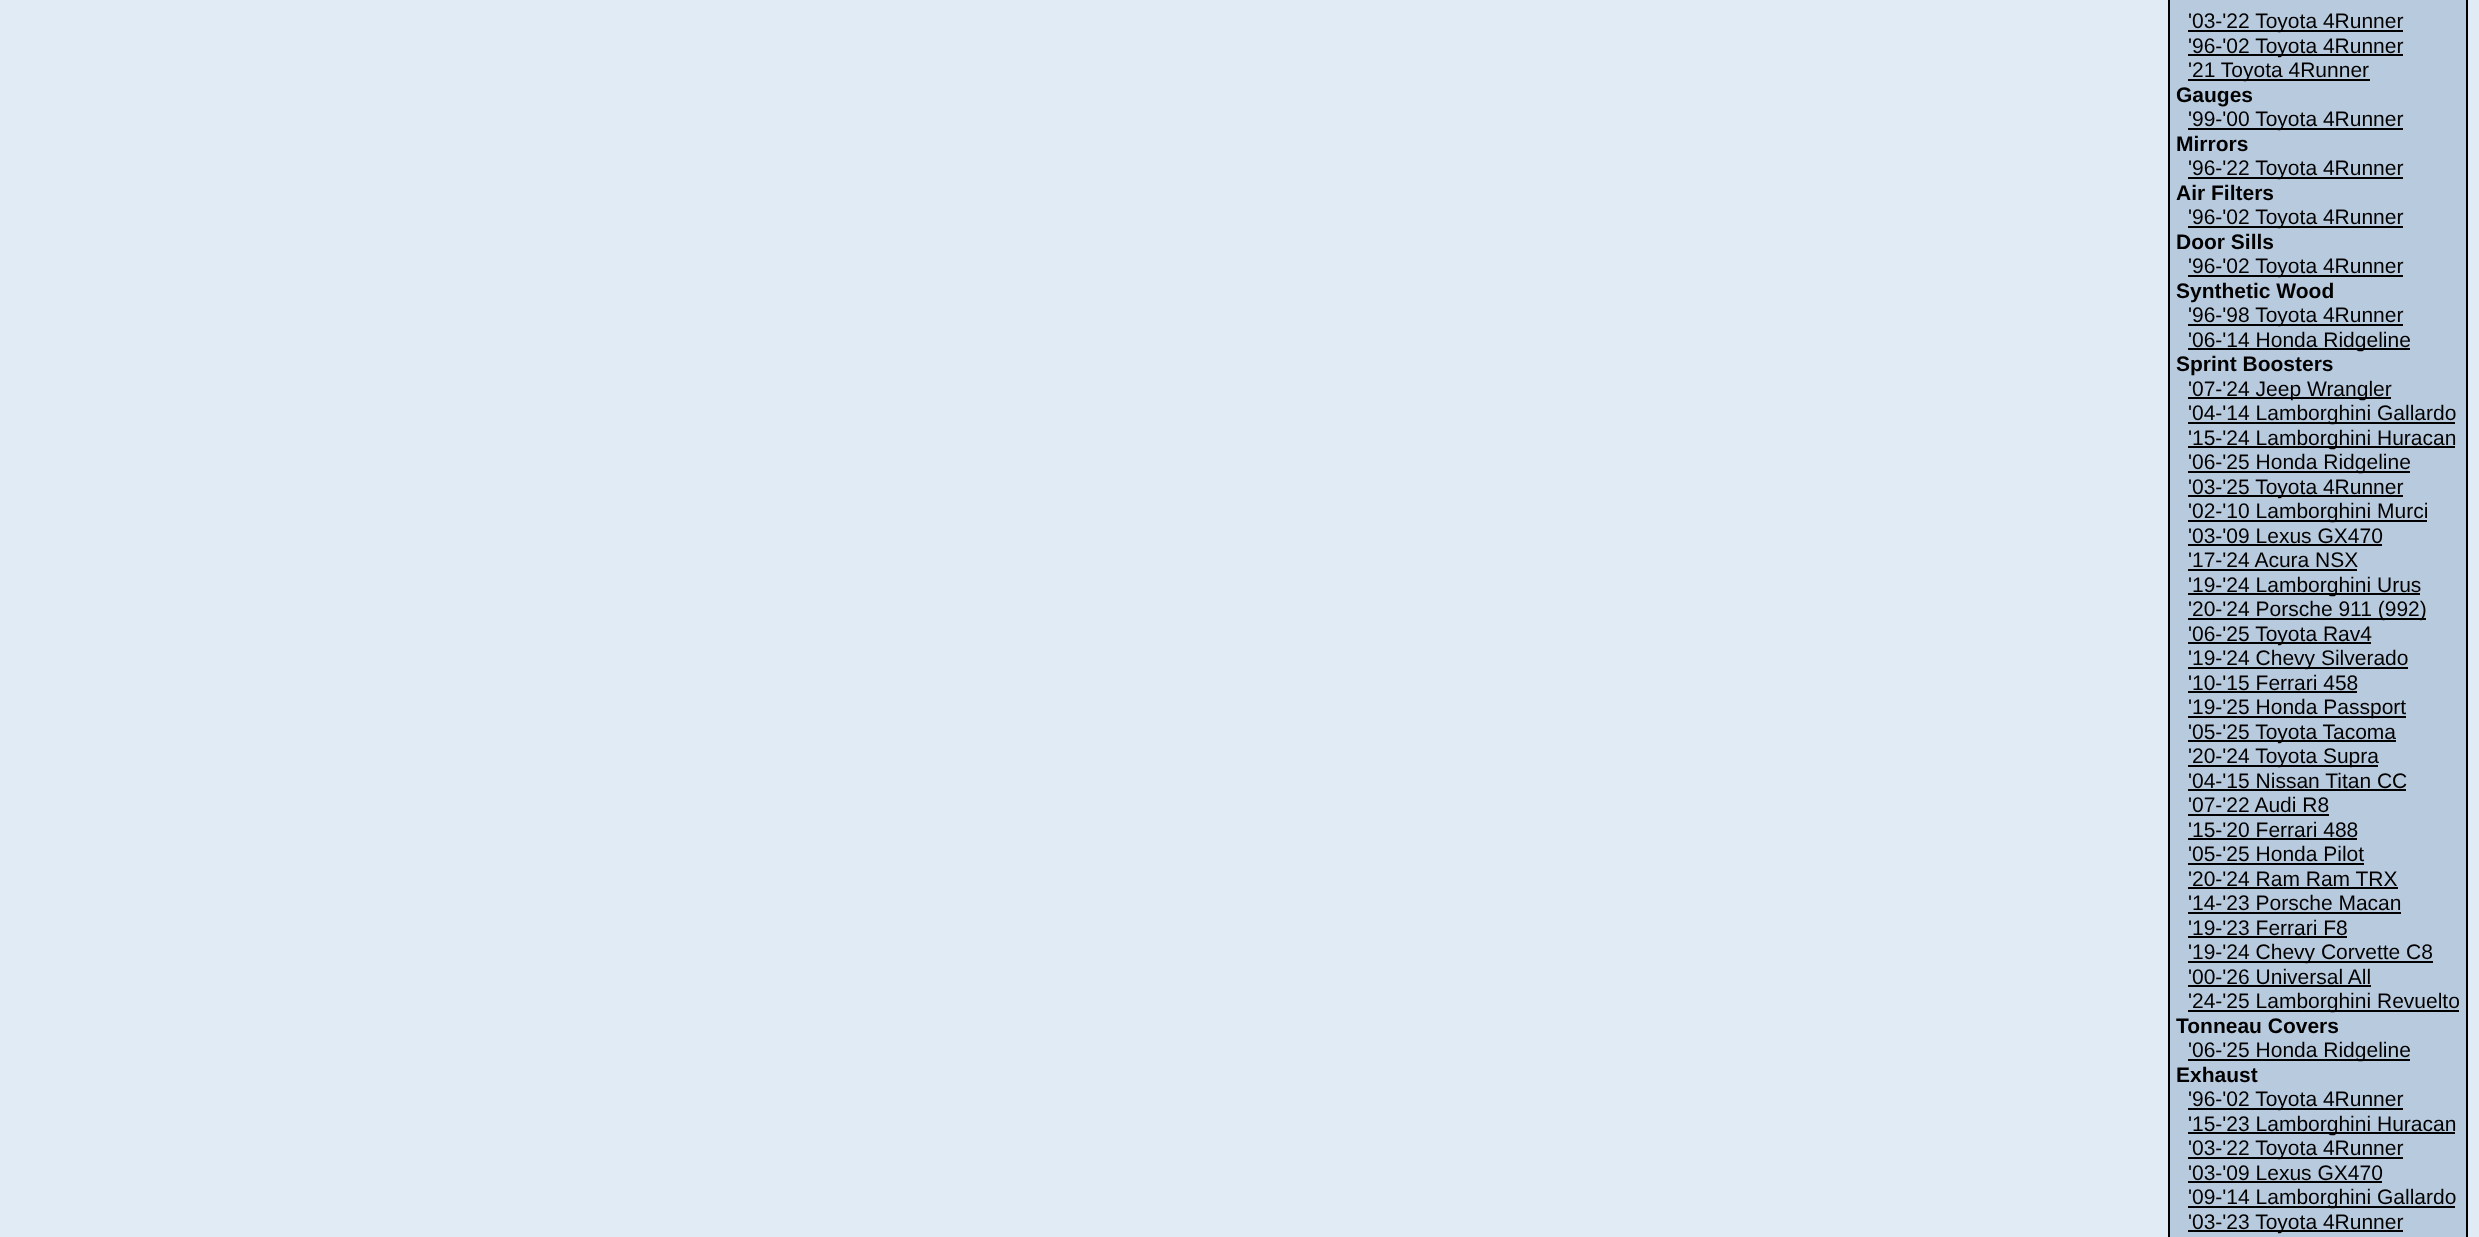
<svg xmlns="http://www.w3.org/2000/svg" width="2479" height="1237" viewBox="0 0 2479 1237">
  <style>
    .t1 { font: 21px Liberation Sans; fill: #000; }
    .t2 { font: bold 21px Liberation Sans; fill: #000; }
  </style>
  <rect width="100%" height="100%" fill="#e1ebf5"/>
  <rect x="2168" y="0" width="2" height="1237" fill="#000"/>
  <rect x="2466" y="0" width="2" height="1237" fill="#000"/>
  <rect x="2170" y="0" width="296" height="1237" fill="#b8cade"/>
  <rect x="2188" y="30" width="215" height="2" fill="#000"/>
  <text x="2188" y="28" class="t1">'03-'22 Toyota 4Runner</text>
  <rect x="2188" y="54" width="215" height="2" fill="#000"/>
  <text x="2188" y="53" class="t1">'96-'02 Toyota 4Runner</text>
  <rect x="2188" y="79" width="182" height="2" fill="#000"/>
  <text x="2188" y="77" class="t1">'21 Toyota 4Runner</text>
  <text x="2176" y="102" class="t2">Gauges</text>
  <rect x="2188" y="128" width="215" height="2" fill="#000"/>
  <text x="2188" y="126" class="t1">'99-'00 Toyota 4Runner</text>
  <text x="2176" y="151" class="t2">Mirrors</text>
  <rect x="2188" y="177" width="215" height="2" fill="#000"/>
  <text x="2188" y="175" class="t1">'96-'22 Toyota 4Runner</text>
  <text x="2176" y="200" class="t2">Air Filters</text>
  <rect x="2188" y="226" width="215" height="2" fill="#000"/>
  <text x="2188" y="224" class="t1">'96-'02 Toyota 4Runner</text>
  <text x="2176" y="249" class="t2">Door Sills</text>
  <rect x="2188" y="275" width="215" height="2" fill="#000"/>
  <text x="2188" y="273" class="t1">'96-'02 Toyota 4Runner</text>
  <text x="2176" y="298" class="t2">Synthetic Wood</text>
  <rect x="2188" y="324" width="215" height="2" fill="#000"/>
  <text x="2188" y="322" class="t1">'96-'98 Toyota 4Runner</text>
  <rect x="2188" y="348" width="222" height="2" fill="#000"/>
  <text x="2188" y="347" class="t1">'06-'14 Honda Ridgeline</text>
  <text x="2176" y="371" class="t2">Sprint Boosters</text>
  <rect x="2188" y="397" width="203" height="2" fill="#000"/>
  <text x="2188" y="396" class="t1">'07-'24 Jeep Wrangler</text>
  <rect x="2188" y="422" width="267" height="2" fill="#000"/>
  <text x="2188" y="420" class="t1">'04-'14 Lamborghini Gallardo</text>
  <rect x="2188" y="446" width="267" height="2" fill="#000"/>
  <text x="2188" y="445" class="t1">'15-'24 Lamborghini Huracan</text>
  <rect x="2188" y="471" width="222" height="2" fill="#000"/>
  <text x="2188" y="469" class="t1">'06-'25 Honda Ridgeline</text>
  <rect x="2188" y="495" width="215" height="2" fill="#000"/>
  <text x="2188" y="494" class="t1">'03-'25 Toyota 4Runner</text>
  <rect x="2188" y="520" width="239" height="2" fill="#000"/>
  <text x="2188" y="518" class="t1">'02-'10 Lamborghini Murci</text>
  <text x="2188" y="543" class="t1">'03-'09 Lexus GX470</text>
  <rect x="2188" y="544" width="194" height="2" fill="#000"/>
  <text x="2188" y="567" class="t1">'17-'24 Acura NSX</text>
  <rect x="2188" y="569" width="169" height="2" fill="#000"/>
  <rect x="2188" y="593" width="232" height="2" fill="#000"/>
  <text x="2188" y="592" class="t1">'19-'24 Lamborghini Urus</text>
  <rect x="2188" y="618" width="238" height="2" fill="#000"/>
  <text x="2188" y="616" class="t1">'20-'24 Porsche 911 (992)</text>
  <rect x="2188" y="642" width="183" height="2" fill="#000"/>
  <text x="2188" y="641" class="t1">'06-'25 Toyota Rav4</text>
  <rect x="2188" y="667" width="220" height="2" fill="#000"/>
  <text x="2188" y="665" class="t1">'19-'24 Chevy Silverado</text>
  <text x="2188" y="690" class="t1">'10-'15 Ferrari 458</text>
  <rect x="2188" y="691" width="169" height="2" fill="#000"/>
  <rect x="2188" y="716" width="218" height="2" fill="#000"/>
  <text x="2188" y="714" class="t1">'19-'25 Honda Passport</text>
  <rect x="2188" y="740" width="208" height="2" fill="#000"/>
  <text x="2188" y="739" class="t1">'05-'25 Toyota Tacoma</text>
  <rect x="2188" y="765" width="190" height="2" fill="#000"/>
  <text x="2188" y="763" class="t1">'20-'24 Toyota Supra</text>
  <text x="2188" y="788" class="t1">'04-'15 Nissan Titan CC</text>
  <rect x="2188" y="789" width="218" height="2" fill="#000"/>
  <text x="2188" y="812" class="t1">'07-'22 Audi R8</text>
  <rect x="2188" y="814" width="141" height="2" fill="#000"/>
  <text x="2188" y="837" class="t1">'15-'20 Ferrari 488</text>
  <rect x="2188" y="838" width="169" height="2" fill="#000"/>
  <text x="2188" y="861" class="t1">'05-'25 Honda Pilot</text>
  <rect x="2188" y="863" width="176" height="2" fill="#000"/>
  <text x="2188" y="886" class="t1">'20-'24 Ram Ram TRX</text>
  <rect x="2188" y="887" width="210" height="2" fill="#000"/>
  <text x="2188" y="910" class="t1">'14-'23 Porsche Macan</text>
  <rect x="2188" y="912" width="213" height="2" fill="#000"/>
  <text x="2188" y="935" class="t1">'19-'23 Ferrari F8</text>
  <rect x="2188" y="936" width="159" height="2" fill="#000"/>
  <rect x="2188" y="961" width="245" height="2" fill="#000"/>
  <text x="2188" y="959" class="t1">'19-'24 Chevy Corvette C8</text>
  <text x="2188" y="984" class="t1">'00-'26 Universal All</text>
  <rect x="2188" y="985" width="183" height="2" fill="#000"/>
  <rect x="2188" y="1010" width="271" height="2" fill="#000"/>
  <text x="2188" y="1008" class="t1">'24-'25 Lamborghini Revuelto</text>
  <text x="2176" y="1033" class="t2">Tonneau Covers</text>
  <rect x="2188" y="1059" width="222" height="2" fill="#000"/>
  <text x="2188" y="1057" class="t1">'06-'25 Honda Ridgeline</text>
  <text x="2176" y="1082" class="t2">Exhaust</text>
  <rect x="2188" y="1108" width="215" height="2" fill="#000"/>
  <text x="2188" y="1106" class="t1">'96-'02 Toyota 4Runner</text>
  <rect x="2188" y="1132" width="267" height="2" fill="#000"/>
  <text x="2188" y="1131" class="t1">'15-'23 Lamborghini Huracan</text>
  <rect x="2188" y="1157" width="215" height="2" fill="#000"/>
  <text x="2188" y="1155" class="t1">'03-'22 Toyota 4Runner</text>
  <text x="2188" y="1180" class="t1">'03-'09 Lexus GX470</text>
  <rect x="2188" y="1181" width="194" height="2" fill="#000"/>
  <rect x="2188" y="1206" width="267" height="2" fill="#000"/>
  <text x="2188" y="1204" class="t1">'09-'14 Lamborghini Gallardo</text>
  <rect x="2188" y="1230" width="215" height="2" fill="#000"/>
  <text x="2188" y="1229" class="t1">'03-'23 Toyota 4Runner</text>
</svg>
